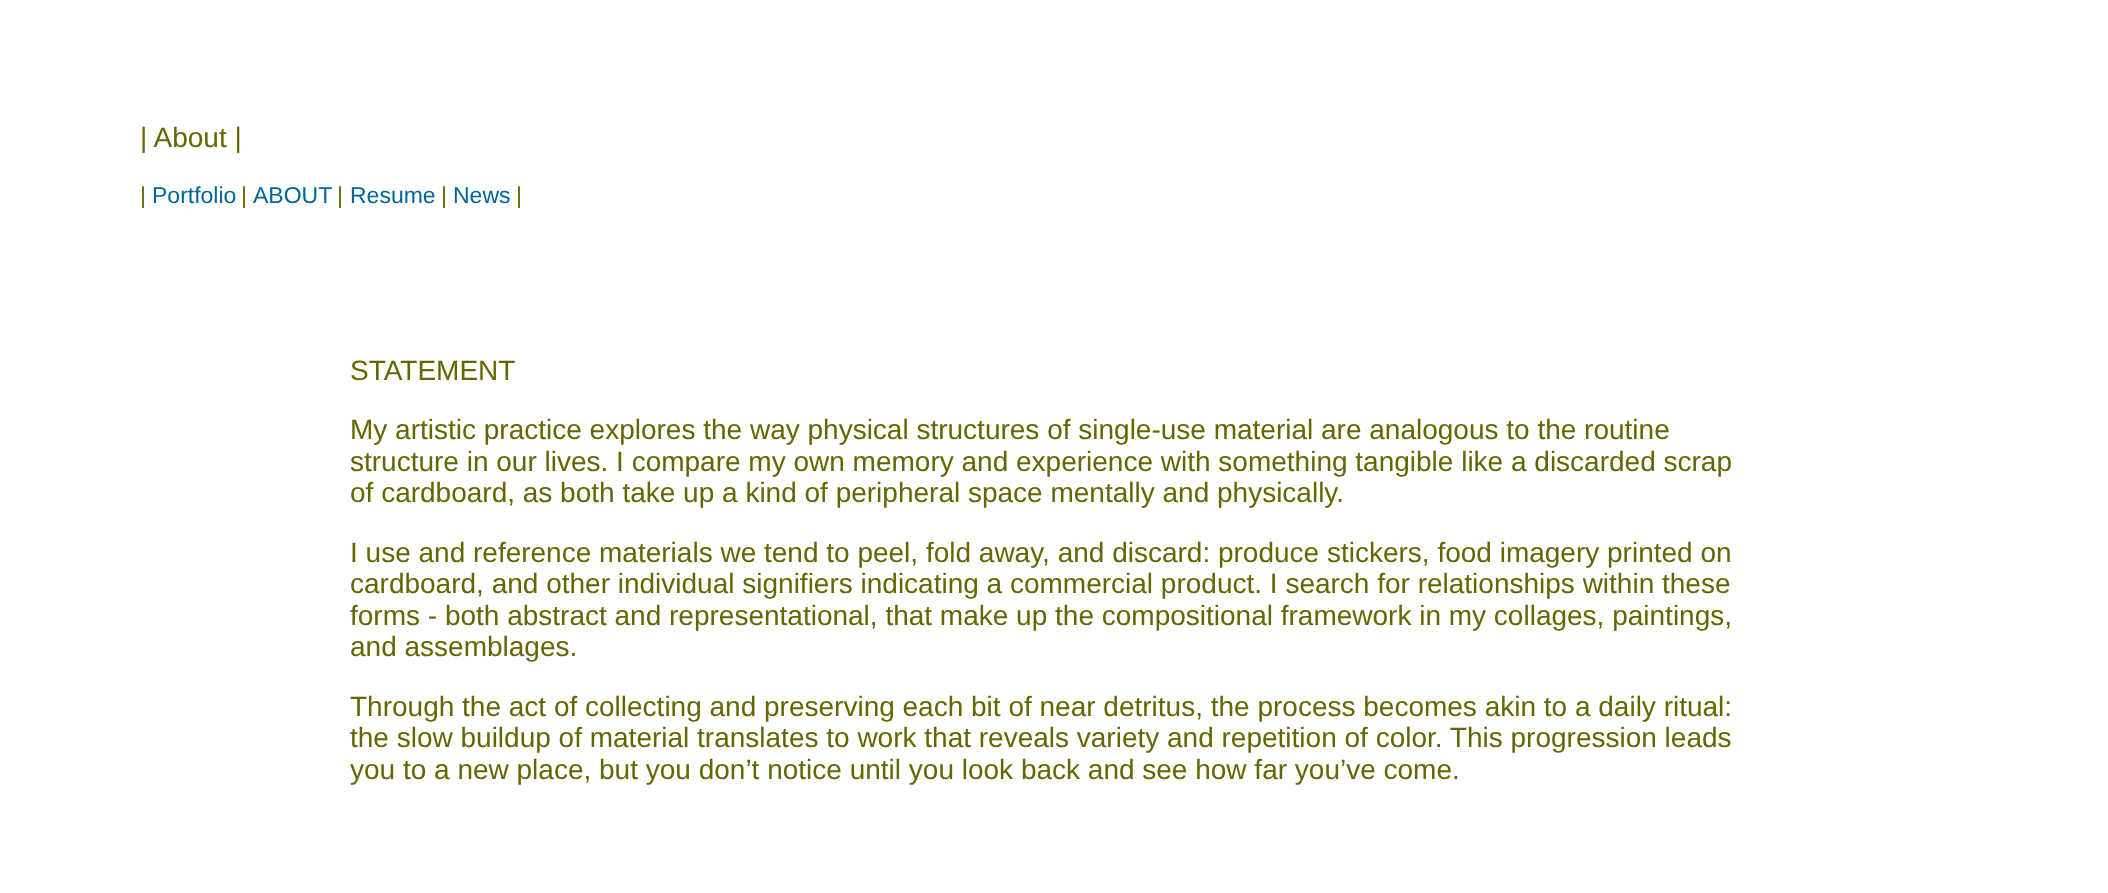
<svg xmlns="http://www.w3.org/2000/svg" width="2108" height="893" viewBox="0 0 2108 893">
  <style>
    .t1 { font: 28px Liberation Sans; fill: #660; }
    .t2 { font: 23px Liberation Sans; fill: #660; }
    .t3 { font: 23px Liberation Sans; fill: #069; }
  </style>
  <rect width="100%" height="100%" fill="#fff"/>
  <text x="140" y="147" class="t1">| About |</text>
  <text x="140" y="203" class="t2">|</text>
  <text x="152" y="203" class="t3">Portfolio</text>
  <text x="241" y="203" class="t2">|</text>
  <text x="253" y="203" class="t3">ABOUT</text>
  <text x="337" y="203" class="t2">|</text>
  <text x="350" y="203" class="t3">Resume</text>
  <text x="441" y="203" class="t2">|</text>
  <text x="453" y="203" class="t3">News</text>
  <text x="516" y="203" class="t2">|</text>
  <text x="350" y="380" class="t1">STATEMENT</text>
  <text x="350" y="439" class="t1">My artistic practice explores the way physical structures of single-use material are analogous to the routine</text>
  <text x="350" y="471" class="t1">structure in our lives. I compare my own memory and experience with something tangible like a discarded scrap</text>
  <text x="350" y="502" class="t1">of cardboard, as both take up a kind of peripheral space mentally and physically.</text>
  <text x="350" y="562" class="t1">I use and reference materials we tend to peel, fold away, and discard: produce stickers, food imagery printed on</text>
  <text x="350" y="593" class="t1">cardboard, and other individual signifiers indicating a commercial product. I search for relationships within these</text>
  <text x="350" y="625" class="t1">forms - both abstract and representational, that make up the compositional framework in my collages, paintings,</text>
  <text x="350" y="656" class="t1">and assemblages.</text>
  <text x="350" y="716" class="t1">Through the act of collecting and preserving each bit of near detritus, the process becomes akin to a daily ritual:</text>
  <text x="350" y="747" class="t1">the slow buildup of material translates to work that reveals variety and repetition of color. This progression leads</text>
  <text x="350" y="779" class="t1">you to a new place, but you don’t notice until you look back and see how far you’ve come.</text>
</svg>
